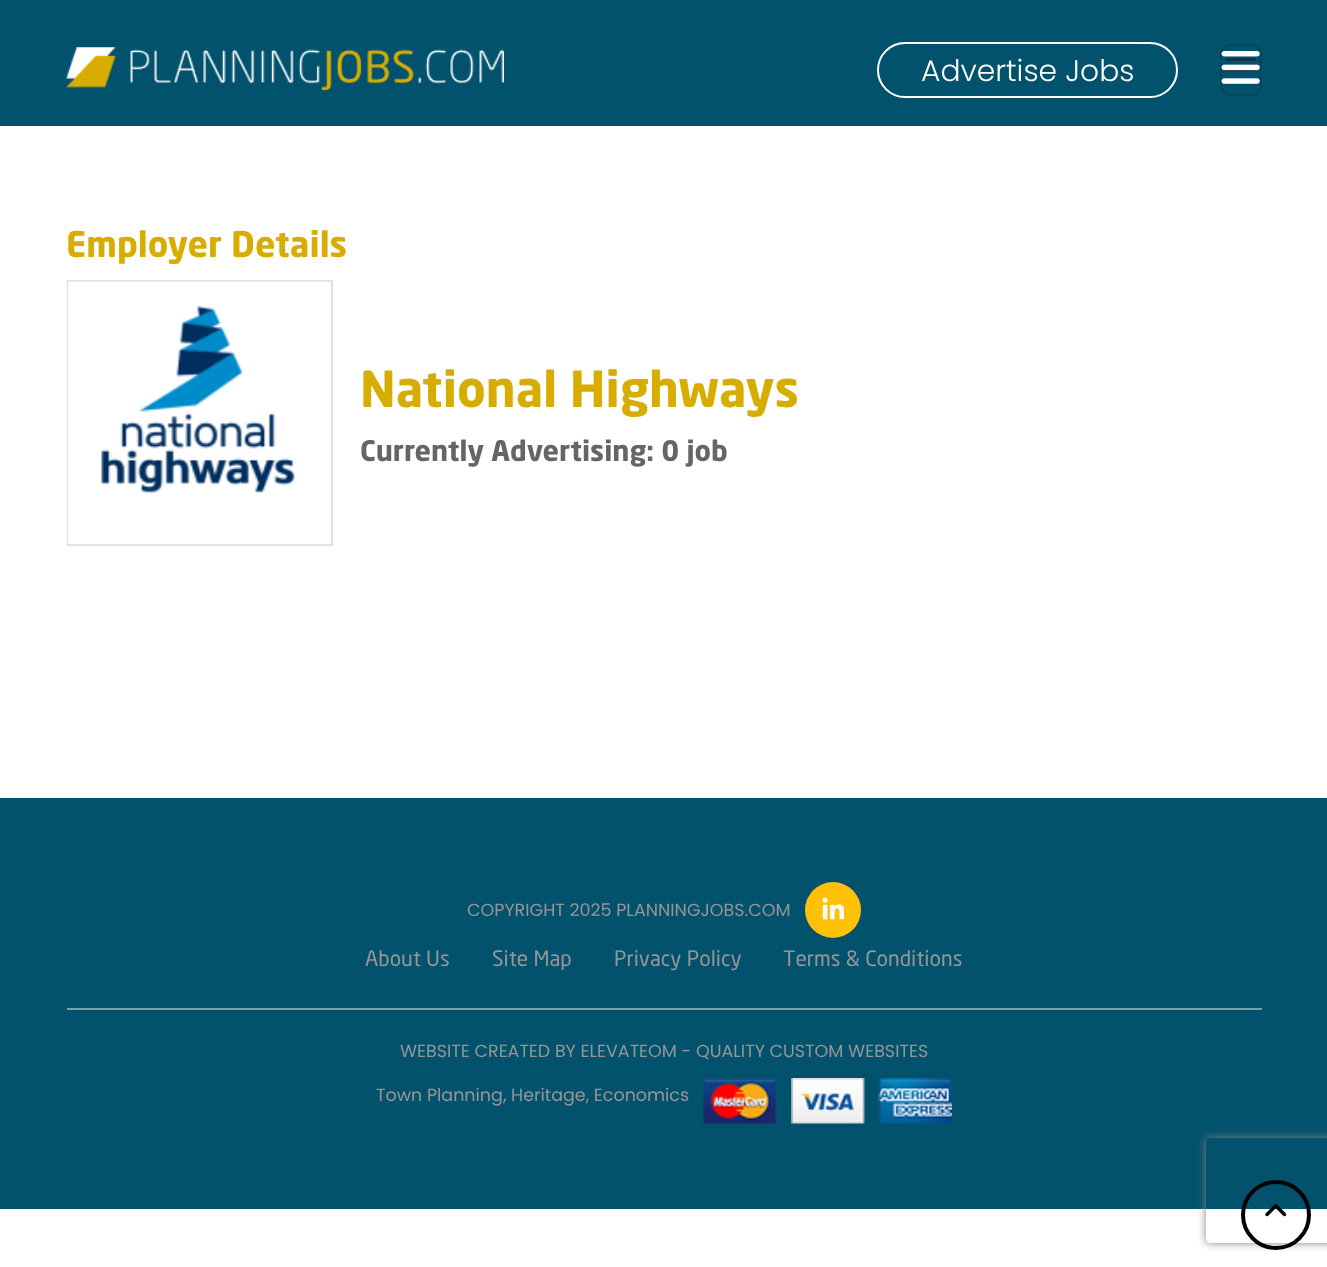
<svg xmlns="http://www.w3.org/2000/svg" width="1327" height="1267" viewBox="0 0 1327 1267">
  <style>
    .t1 { font: 300 29.75px Poppins; fill: #fff; }
    .t2 { font: bold 35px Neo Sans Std; fill: #d8ad02; }
    .t3 { font: bold 49px Neo Sans Std; fill: #d8ad02; }
    .t4 { font: bold 28px Neo Sans Std; fill: #656565; }
    .t5 { font: 17.5px Poppins; fill: #969696; }
    .t6 { font: 21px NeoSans; fill: #969696; }
  </style>
  <defs>
    <clipPath id="clip1"><path d="M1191 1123H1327V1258H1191ZM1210 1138H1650C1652 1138 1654 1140 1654 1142V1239C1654 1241 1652 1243 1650 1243H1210C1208 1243 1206 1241 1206 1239V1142C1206 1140 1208 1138 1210 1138Z" clip-rule="evenodd"/></clipPath>
  </defs>
  <rect width="100%" height="100%" fill="#fff"/>
  <rect x="0" y="0" width="1327" height="126" fill="#03526d"/>
  <image x="66" y="47" width="438" height="44" href="images/1.png"/>
  <rect x="878" y="43" width="299" height="54" rx="27" fill="none" stroke="#fff" stroke-width="2"/>
  <text x="921" y="81" class="t1">Advertise Jobs</text>
  <rect x="1221" y="45" width="40" height="50" rx="10" fill="none" stroke="#03465d" stroke-width="2"/>
  <path d="M1226.5 59.5H1254.5M1226.5 70H1254.5M1226.5 80H1254.5" fill="none" stroke="#1a303a" stroke-width="2.6" stroke-linecap="round"/>
  <image x="1221" y="51" width="39" height="33" href="images/2.png"/>
  <text x="66" y="257" class="t2">Employer Details</text>
  <rect x="68" y="281" width="264" height="264" fill="none" stroke="#dee2e6" stroke-width="2"/>
  <image x="68" y="281" width="263" height="264" href="images/3.png"/>
  <text x="360" y="407" class="t3">National Highways</text>
  <text x="360" y="461" class="t4">Currently Advertising: 0 job</text>
  <rect x="0" y="798" width="1327" height="411" fill="#03526d"/>
  <rect x="67" y="1008" width="1195" height="2" fill="#77a2b0"/>
  <text x="467" y="916" class="t5">COPYRIGHT 2025 PLANNINGJOBS.COM</text>
  <circle cx="833" cy="910" r="28" fill="#ffc107"/>
  <image x="822" y="897" width="22" height="23" href="images/4.png"/>
  <text x="365" y="966" class="t6">About Us</text>
  <text x="492" y="966" class="t6">Site Map</text>
  <text x="614" y="966" class="t6">Privacy Policy</text>
  <text x="783" y="966" class="t6">Terms &amp; Conditions</text>
  <text x="400" y="1057" class="t5">WEBSITE CREATED BY ELEVATEOM - QUALITY CUSTOM WEBSITES</text>
  <text x="376" y="1101" class="t5">Town Planning, Heritage, Economics</text>
  <image x="703" y="1078" width="74" height="46" href="images/5.png"/>
  <image x="791" y="1078" width="74" height="46" href="images/6.png"/>
  <image x="878" y="1078" width="74" height="46" href="images/7.png"/>
  <g clip-path="url(#clip1)">
    <rect x="1206" y="1138" width="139" height="105" rx="4" fill="#808080" filter="blur(4.5px)"/>
  </g>
  <circle cx="1276" cy="1215" r="33" fill="none" stroke="#000" stroke-width="4"/>
  <image x="1265" y="1204" width="22" height="13" href="images/8.png"/>
</svg>
